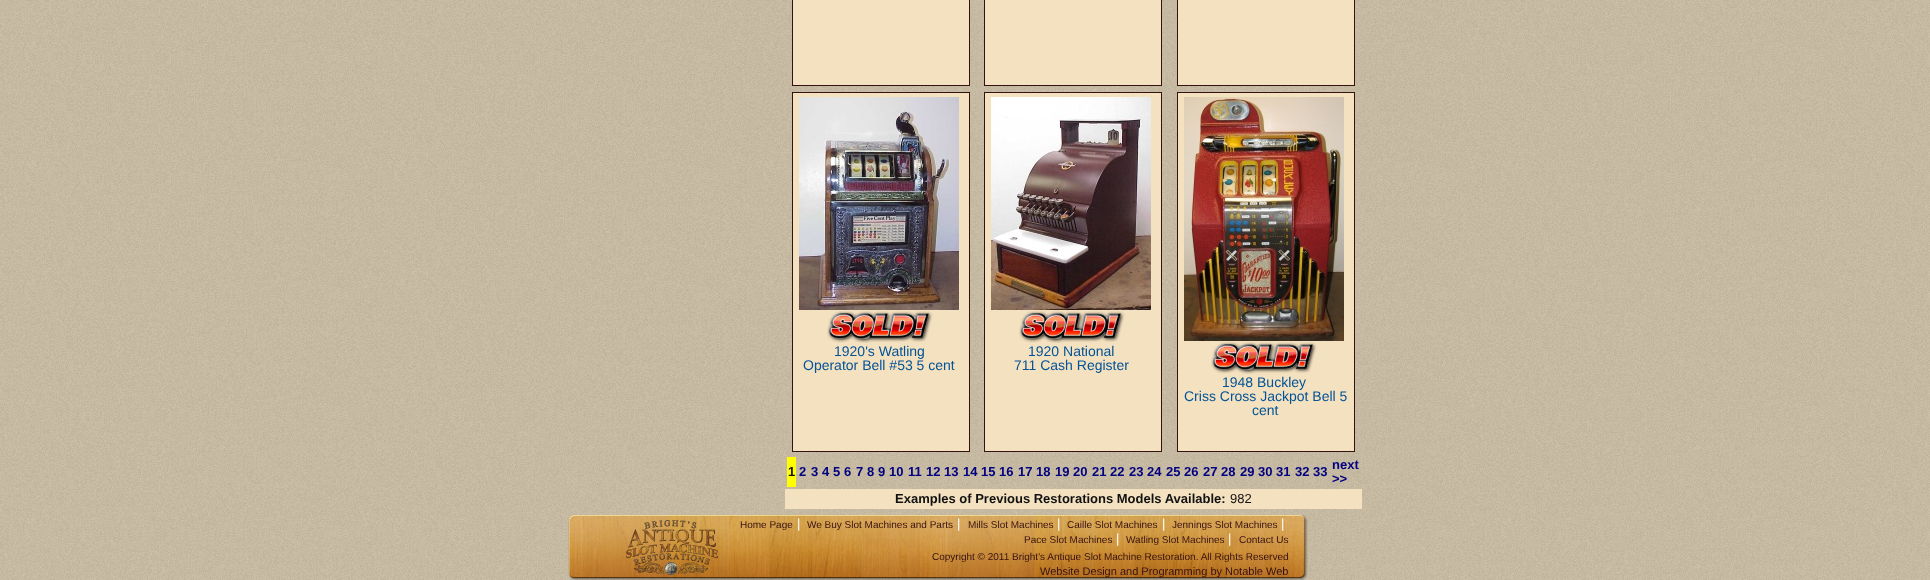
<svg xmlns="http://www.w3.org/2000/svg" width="1930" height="580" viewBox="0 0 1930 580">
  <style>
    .t1 { font: 14px Liberation Sans; fill: #025397; }
    .t2 { font: bold 13px Liberation Sans; fill: #111; }
    .t3 { font: bold 13px Liberation Sans; fill: #000080; }
    .t4 { font: 13px Liberation Sans; fill: #111; }
    .t5 { font: 10px Liberation Sans; fill: #381212; }
    .t6 { font: 13px Liberation Sans; fill: #fff; }
    .t7 { font: 11px Liberation Sans; fill: #381212; }
  </style>
  <rect width="100%" height="100%" fill="#fff"/>
  <image x="0" y="0" width="1930" height="580" href="images/1.png"/>
  <rect x="792.5" y="-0.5" width="177" height="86" fill="#f4e1c0" stroke="#361112"/>
  <rect x="984.5" y="-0.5" width="177" height="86" fill="#f4e1c0" stroke="#361112"/>
  <rect x="1177.5" y="-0.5" width="177" height="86" fill="#f4e1c0" stroke="#361112"/>
  <rect x="792.5" y="92.5" width="177" height="359" fill="#f4e1c0" stroke="#361112"/>
  <image x="799" y="97" width="160" height="213" href="images/2.png"/>
  <image x="827" y="311" width="106" height="32" href="images/3.png"/>
  <text x="834" y="356" class="t1">1920's Watling</text>
  <text x="803" y="370" class="t1">Operator Bell #53 5 cent</text>
  <rect x="984.5" y="92.5" width="177" height="359" fill="#f4e1c0" stroke="#361112"/>
  <image x="991" y="97" width="160" height="213" href="images/4.png"/>
  <image x="1019" y="311" width="106" height="32" href="images/3.png"/>
  <text x="1028" y="356" class="t1">1920 National</text>
  <text x="1014" y="370" class="t1">711 Cash Register</text>
  <rect x="1177.5" y="92.5" width="177" height="359" fill="#f4e1c0" stroke="#361112"/>
  <image x="1184" y="97" width="160" height="244" href="images/5.png"/>
  <image x="1211" y="342" width="106" height="32" href="images/3.png"/>
  <text x="1222" y="387" class="t1">1948 Buckley</text>
  <text x="1184" y="401" class="t1">Criss Cross Jackpot Bell 5</text>
  <text x="1252" y="415" class="t1">cent</text>
  <rect x="787" y="457" width="9" height="30" fill="#ff0"/>
  <text x="788" y="476" class="t2">1</text>
  <text x="799" y="476" class="t3">2</text>
  <text x="811" y="476" class="t3">3</text>
  <text x="822" y="476" class="t3">4</text>
  <text x="833" y="476" class="t3">5</text>
  <text x="844" y="476" class="t3">6</text>
  <text x="856" y="476" class="t3">7</text>
  <text x="867" y="476" class="t3">8</text>
  <text x="878" y="476" class="t3">9</text>
  <text x="889" y="476" class="t3">10</text>
  <text x="908" y="476" class="t3">11</text>
  <text x="926" y="476" class="t3">12</text>
  <text x="944" y="476" class="t3">13</text>
  <text x="963" y="476" class="t3">14</text>
  <text x="981" y="476" class="t3">15</text>
  <text x="999" y="476" class="t3">16</text>
  <text x="1018" y="476" class="t3">17</text>
  <text x="1036" y="476" class="t3">18</text>
  <text x="1055" y="476" class="t3">19</text>
  <text x="1073" y="476" class="t3">20</text>
  <text x="1092" y="476" class="t3">21</text>
  <text x="1110" y="476" class="t3">22</text>
  <text x="1129" y="476" class="t3">23</text>
  <text x="1147" y="476" class="t3">24</text>
  <text x="1166" y="476" class="t3">25</text>
  <text x="1184" y="476" class="t3">26</text>
  <text x="1203" y="476" class="t3">27</text>
  <text x="1221" y="476" class="t3">28</text>
  <text x="1240" y="476" class="t3">29</text>
  <text x="1258" y="476" class="t3">30</text>
  <text x="1276" y="476" class="t3">31</text>
  <text x="1295" y="476" class="t3">32</text>
  <text x="1313" y="476" class="t3">33</text>
  <text x="1332" y="469" class="t3">next</text>
  <text x="1332" y="483" class="t3">&gt;&gt;</text>
  <rect x="785" y="489" width="577" height="20" fill="#f4e1c0"/>
  <text x="895" y="503" class="t2">Examples of Previous Restorations Models Available:</text>
  <text x="1230" y="503" class="t4">982</text>
  <image x="568" y="515" width="740" height="65" href="images/6.png"/>
  <image x="626" y="520" width="92" height="55" href="images/7.png"/>
  <text x="740" y="528" class="t5">Home Page</text>
  <text x="797" y="528" class="t6">|</text>
  <text x="807" y="528" class="t5">We Buy Slot Machines and Parts</text>
  <text x="957" y="528" class="t6">|</text>
  <text x="968" y="528" class="t5">Mills Slot Machines</text>
  <text x="1057" y="528" class="t6">|</text>
  <text x="1067" y="528" class="t5">Caille Slot Machines</text>
  <text x="1162" y="528" class="t6">|</text>
  <text x="1172" y="528" class="t5">Jennings Slot Machines</text>
  <text x="1281" y="528" class="t6">|</text>
  <text x="1024" y="543" class="t5">Pace Slot Machines</text>
  <text x="1116" y="543" class="t6">|</text>
  <text x="1126" y="543" class="t5">Watling Slot Machines</text>
  <text x="1228" y="543" class="t6">|</text>
  <text x="1239" y="543" class="t5">Contact Us</text>
  <text x="932" y="560" class="t5">Copyright © 2011 Bright's Antique Slot Machine Restoration. All Rights Reserved</text>
  <text x="1040" y="575" class="t7">Website Design and Programming by Notable Web</text>
</svg>
